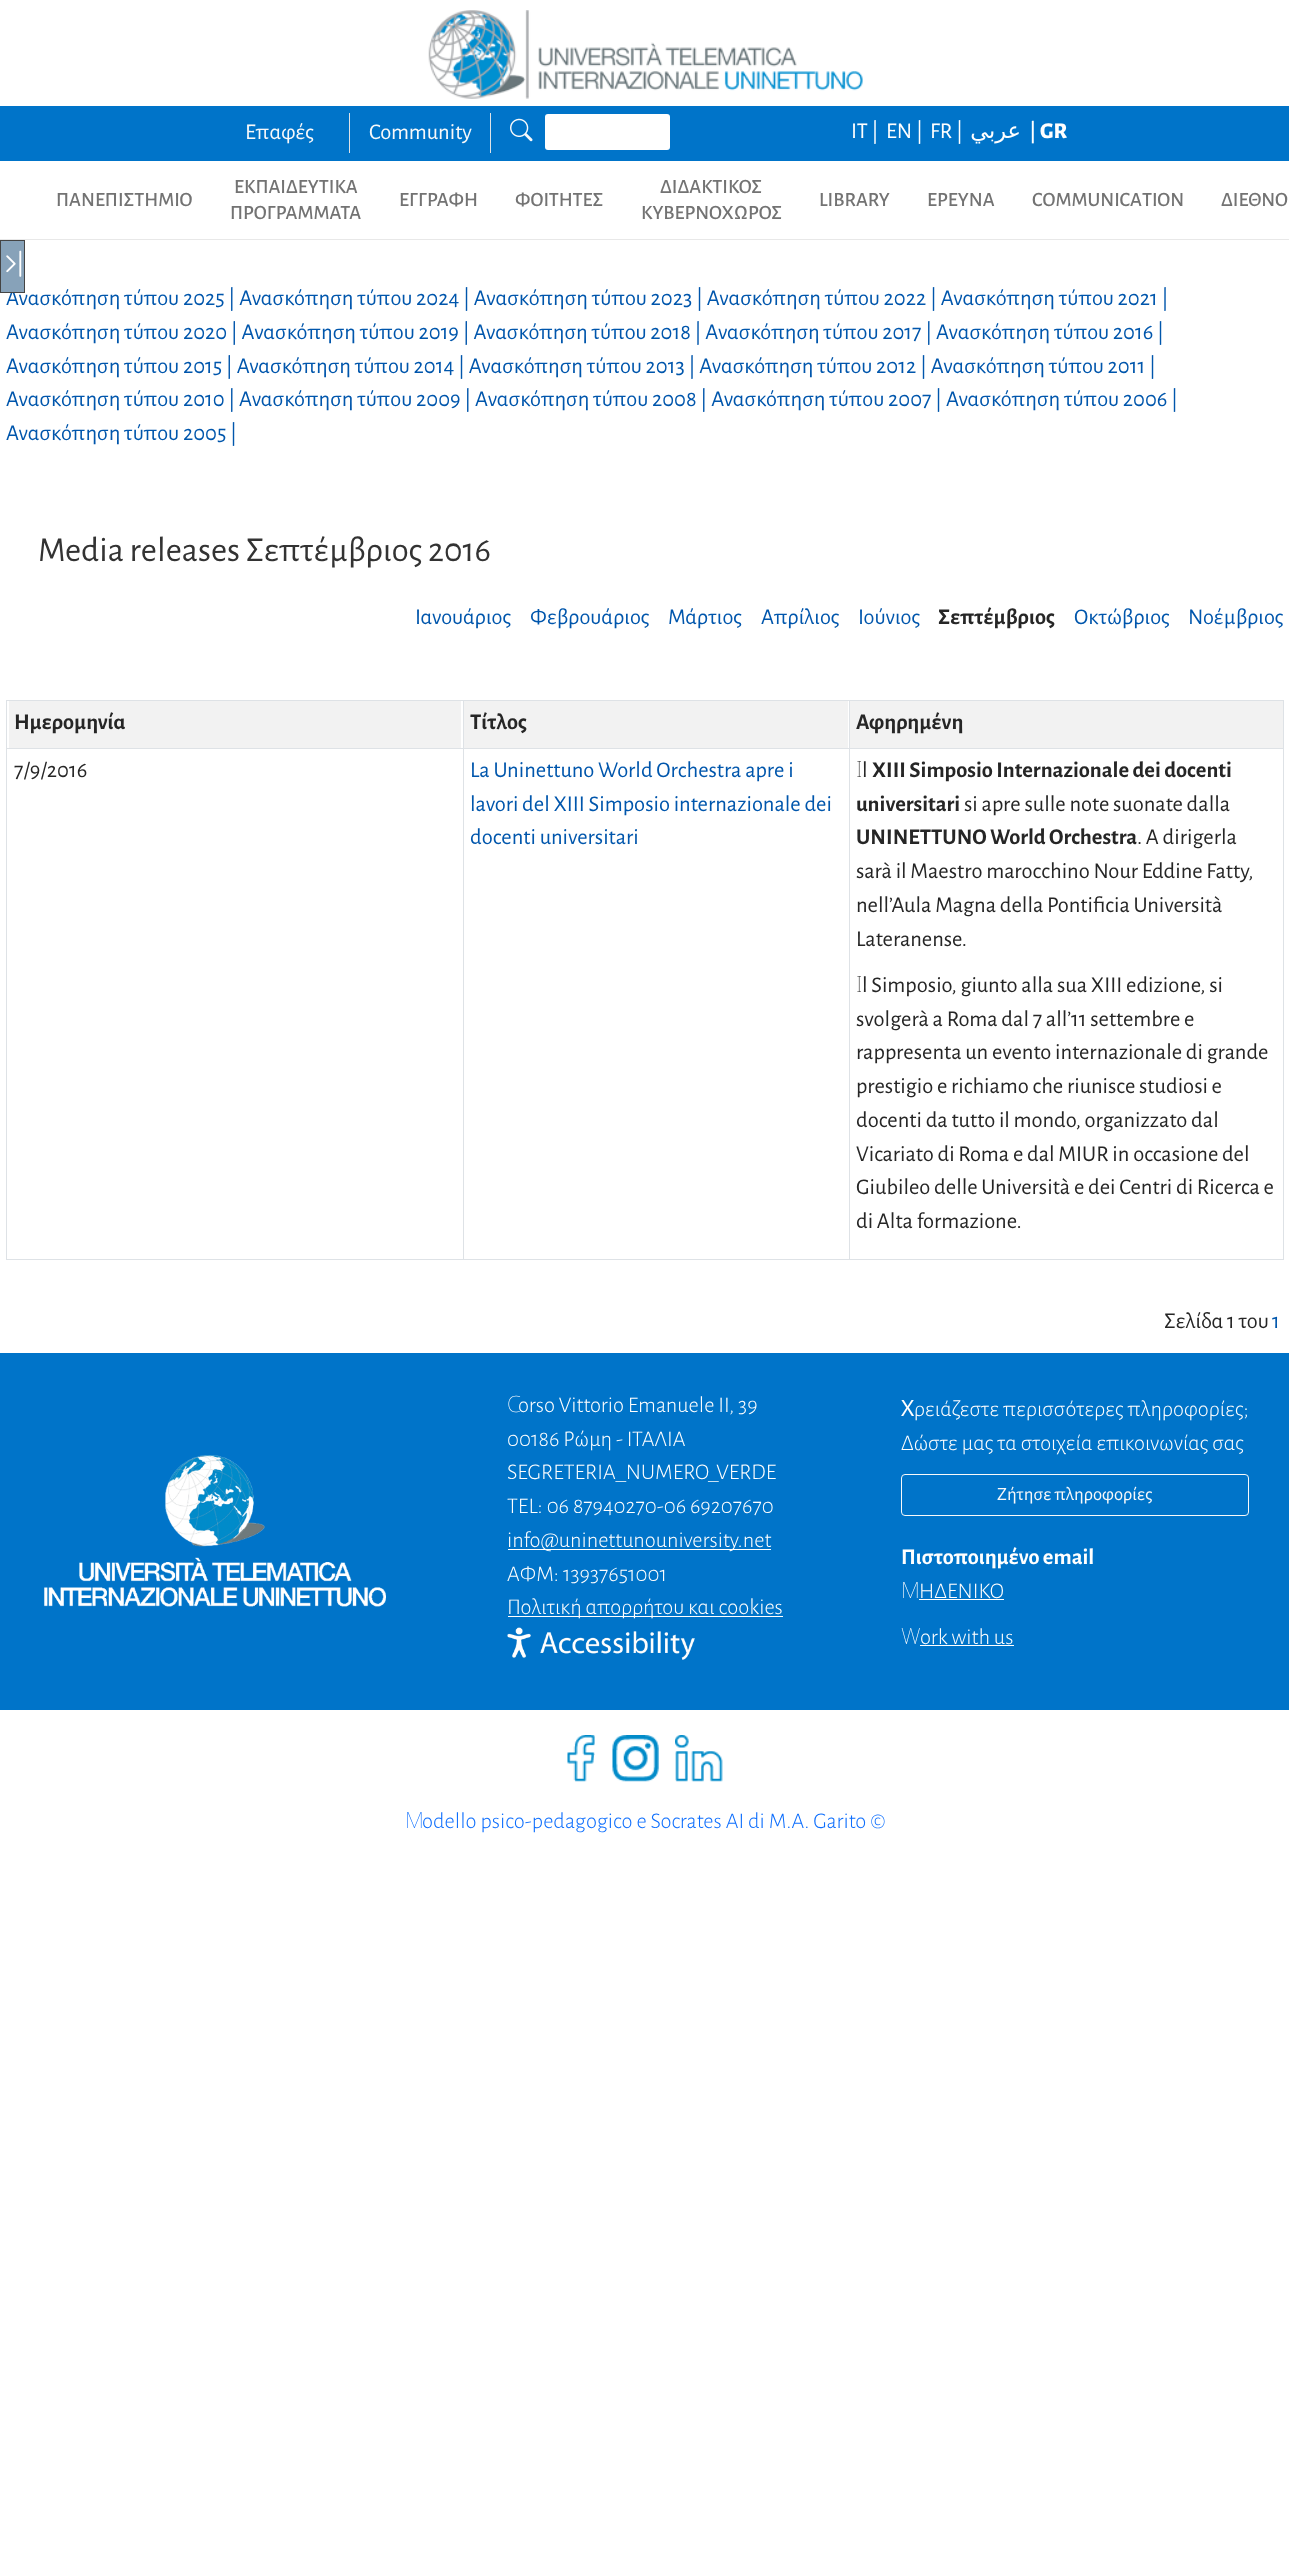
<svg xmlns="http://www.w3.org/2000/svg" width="1289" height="2558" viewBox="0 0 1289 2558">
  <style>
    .t1 { font: 22.5px Alegreya Sans; fill: #f8f9fa; }
    .t2 { font: 22.5px Alegreya Sans; fill: #fff; }
    .t3 { font: 22.5px DejaVu Sans; direction: rtl; fill: #fff; }
    .t4 { font: 22.5px DejaVu Sans; fill: #fff; }
    .t5 { font: 800 22.5px Alegreya Sans; fill: #fff; }
    .t6 { font: 500 20.25px Alegreya Sans; fill: #737373; }
    .t7 { font: 22.5px Alegreya Sans; fill: #0056ac; }
    .t8 { font: 35px Alegreya Sans; fill: #333; }
    .t9 { font: bold 22.5px Alegreya Sans; fill: #262626; }
    .t10 { font: 22.5px Alegreya Sans; fill: #262626; }
    .t11 { font: 100 22.5px Noto Sans; fill: #262626; }
    .t12 { font: 100 22.5px Noto Sans; fill: #fff; }
    .t13 { font: 300 22.5px Alegreya Sans; fill: #fff; }
    .t14 { font: 22.5px Noto Sans; fill: #fff; }
    .t15 { font: 18.75px Alegreya Sans; fill: #f8f9fa; }
    .t16 { font: bold 22.5px Alegreya Sans; fill: #fff; }
    .t17 { font: 100 22.5px Noto Sans; fill: #0d6efd; }
    .t18 { font: 300 22.5px Alegreya Sans; fill: #0d6efd; }
  </style>
  <rect width="100%" height="100%" fill="#fff"/>
  <rect x="0" y="239" width="1289" height="1" fill="#e8e8e8"/>
  <image x="428" y="10" width="435" height="89" href="images/1.png"/>
  <rect x="0" y="106" width="1289" height="55" fill="#0074c9"/>
  <rect x="349" y="113" width="1" height="40" fill="#dee2e6"/>
  <text x="245" y="139" class="t1">Επαφές</text>
  <rect x="490" y="113" width="1" height="40" fill="#dee2e6"/>
  <text x="369" y="139" class="t1">Community</text>
  <image x="510" y="118" width="23" height="24" href="images/2.png"/>
  <rect x="545" y="114" width="125" height="36" rx="3" fill="#fff"/>
  <text x="851" y="138" class="t2">IT |</text>
  <text x="886" y="138" class="t2">EN |</text>
  <text x="930" y="138" class="t2">FR |</text>
  <text x="1021" y="138" class="t3">عربي</text>
  <text x="1029" y="138" class="t4">|</text>
  <text x="1040" y="138" class="t5">GR</text>
  <text x="56" y="206" class="t6">ΠΑΝΕΠΙΣΤΗΜΙΟ</text>
  <text x="234" y="193" class="t6">ΕΚΠΑΙΔΕΥΤΙΚΑ</text>
  <text x="230" y="219" class="t6">ΠΡΟΓΡΑΜΜΑΤΑ</text>
  <text x="399" y="206" class="t6">ΕΓΓΡΑΦΗ</text>
  <text x="515" y="206" class="t6">ΦΟΙΤΗΤΕΣ</text>
  <text x="660" y="193" class="t6">ΔΙΔΑΚΤΙΚΟΣ</text>
  <text x="641" y="219" class="t6">ΚΥΒΕΡΝΟΧΩΡΟΣ</text>
  <text x="819" y="206" class="t6">LIBRARY</text>
  <text x="927" y="206" class="t6">ΕΡΕΥΝΑ</text>
  <text x="1032" y="206" class="t6">COMMUNICATION</text>
  <text x="1221" y="206" class="t6">ΔΙΕΘΝΟ</text>
  <text x="6" y="305" class="t7">Ανασκόπηση τύπου 2025 | Ανασκόπηση τύπου 2024 | Ανασκόπηση τύπου 2023 | Ανασκόπηση τύπου 2022 | Ανασκόπηση τύπου 2021 |</text>
  <rect x="0.5" y="240.5" width="24" height="52" fill="#87a2b9" stroke="#444"/>
  <image x="6" y="250" width="16" height="27" href="images/3.png"/>
  <text x="6" y="339" class="t7">Ανασκόπηση τύπου 2020 | Ανασκόπηση τύπου 2019 | Ανασκόπηση τύπου 2018 | Ανασκόπηση τύπου 2017 | Ανασκόπηση τύπου 2016 |</text>
  <text x="6" y="373" class="t7">Ανασκόπηση τύπου 2015 | Ανασκόπηση τύπου 2014 | Ανασκόπηση τύπου 2013 | Ανασκόπηση τύπου 2012 | Ανασκόπηση τύπου 2011 |</text>
  <text x="6" y="406" class="t7">Ανασκόπηση τύπου 2010 | Ανασκόπηση τύπου 2009 | Ανασκόπηση τύπου 2008 | Ανασκόπηση τύπου 2007 | Ανασκόπηση τύπου 2006 |</text>
  <text x="6" y="440" class="t7">Ανασκόπηση τύπου 2005 |</text>
  <text x="38" y="561" class="t8">Media releases Σεπτέμβριος 2016</text>
  <text x="415" y="624" class="t7">Ιανουάριος</text>
  <text x="530" y="624" class="t7">Φεβρουάριος</text>
  <text x="668" y="624" class="t7">Μάρτιος</text>
  <text x="761" y="624" class="t7">Απρίλιος</text>
  <text x="858" y="624" class="t7">Ιούνιος</text>
  <text x="938" y="624" class="t9">Σεπτέμβριος</text>
  <text x="1074" y="624" class="t7">Οκτώβριος</text>
  <text x="1188" y="624" class="t7">Νοέμβριος</text>
  <rect x="6" y="700" width="1278" height="1" fill="#dee2e6"/>
  <rect x="1283" y="700" width="1" height="560" fill="#dee2e6"/>
  <rect x="6" y="1259" width="1278" height="1" fill="#dee2e6"/>
  <rect x="6" y="700" width="1" height="560" fill="#dee2e6"/>
  <rect x="9" y="701" width="452" height="47" fill="#f2f2f2"/>
  <text x="14" y="729" class="t9">Ημερομηνία</text>
  <rect x="464" y="701" width="384" height="47" fill="#f2f2f2"/>
  <text x="470" y="729" class="t9">Τίτλος</text>
  <rect x="850" y="701" width="433" height="47" fill="#f2f2f2"/>
  <text x="856" y="729" class="t9">Αφηρημένη</text>
  <rect x="6" y="748" width="1278" height="1" fill="#dee2e6"/>
  <text x="14" y="777" class="t10">7/9/2016</text>
  <rect x="463" y="700" width="1" height="560" fill="#dee2e6"/>
  <text x="470" y="777" class="t7">La Uninettuno World Orchestra apre i</text>
  <text x="470" y="811" class="t7">lavori del XIII Simposio internazionale dei</text>
  <text x="470" y="844" class="t7">docenti universitari</text>
  <rect x="849" y="700" width="1" height="560" fill="#dee2e6"/>
  <text x="856" y="777" class="t11">I</text>
  <text x="862" y="777" class="t10">l</text>
  <text x="872" y="777" class="t9">XIII Simposio Internazionale dei docenti</text>
  <text x="856" y="811" class="t9">universitari</text>
  <text x="964" y="811" class="t10">si apre sulle note suonate dalla</text>
  <text x="856" y="844" class="t9">UNINETTUNO World Orchestra</text>
  <text x="1137" y="844" class="t10">. A dirigerla</text>
  <text x="856" y="878" class="t10">sarà il Maestro marocchino Nour Eddine Fatty,</text>
  <text x="856" y="912" class="t10">nell’Aula Magna della Pontificia Università</text>
  <text x="856" y="946" class="t10">Lateranense.</text>
  <text x="856" y="992" class="t11">I</text>
  <text x="862" y="992" class="t10">l Simposio, giunto alla sua XIII edizione, si</text>
  <text x="856" y="1026" class="t10">svolgerà a Roma dal 7 all’11 settembre e</text>
  <text x="856" y="1059" class="t10">rappresenta un evento internazionale di grande</text>
  <text x="856" y="1093" class="t10">prestigio e richiamo che riunisce studiosi e</text>
  <text x="856" y="1127" class="t10">docenti da tutto il mondo, organizzato dal</text>
  <text x="856" y="1161" class="t10">Vicariato di Roma e dal MIUR in occasione del</text>
  <text x="856" y="1194" class="t10">Giubileo delle Università e dei Centri di Ricerca e</text>
  <text x="856" y="1228" class="t10">di Alta formazione.</text>
  <text x="1164" y="1328" class="t10">Σελίδα 1 του</text>
  <text x="1272" y="1328" class="t7">1</text>
  <rect x="0" y="1353" width="1289" height="357" fill="#0074c9"/>
  <image x="44" y="1455" width="342" height="152" href="images/4.png"/>
  <text x="507" y="1412" class="t12">C</text>
  <text x="518" y="1412" class="t13">orso Vittorio Emanuele II, 39</text>
  <text x="507" y="1446" class="t13">00186 Ρώμη - ΙΤΑΛΙΑ</text>
  <text x="507" y="1479" class="t13">SEGRETERIA_NUMERO_VERDE</text>
  <text x="507" y="1513" class="t13">TEL: 06 87940270-06 69207670</text>
  <rect x="508" y="1549" width="263" height="1" fill="#fff"/>
  <text x="507" y="1547" class="t13">info@uninettunouniversity.net</text>
  <text x="507" y="1581" class="t13">ΑΦΜ: 13937651001</text>
  <rect x="508" y="1616" width="275" height="1" fill="#fff"/>
  <text x="507" y="1614" class="t13">Πολιτική απορρήτου και cookies</text>
  <image x="507" y="1627" width="188" height="33" href="images/5.png"/>
  <text x="901" y="1416" class="t14">Χ</text>
  <text x="914" y="1416" class="t13">ρειάζεστε περισσότερες πληροφορίες;</text>
  <text x="901" y="1450" class="t13">Δώστε μας τα στοιχεία επικοινωνίας σας</text>
  <rect x="901.5" y="1474.5" width="347" height="41" rx="3.5" fill="none" stroke="#f8f9fa"/>
  <text x="997" y="1500" class="t15">Ζήτησε πληροφορίες</text>
  <text x="901" y="1564" class="t16">Πιστοποιημένο email</text>
  <text x="901" y="1598" class="t12">Μ</text>
  <text x="919" y="1598" class="t13">ΗΔΕΝΙΚΟ</text>
  <rect x="919" y="1599" width="85" height="1" fill="#fff"/>
  <text x="901" y="1644" class="t12">W</text>
  <text x="920" y="1644" class="t13">ork with us</text>
  <rect x="920" y="1645" width="94" height="1" fill="#fff"/>
  <image x="567" y="1735" width="28" height="47" href="images/6.png"/>
  <image x="612" y="1735" width="47" height="47" href="images/7.png"/>
  <image x="675" y="1735" width="48" height="47" href="images/8.png"/>
  <text x="405" y="1828" class="t17">M</text>
  <text x="422" y="1828" class="t18">odello psico-pedagogico e Socrates AI di M.A. Garito ©</text>
</svg>
